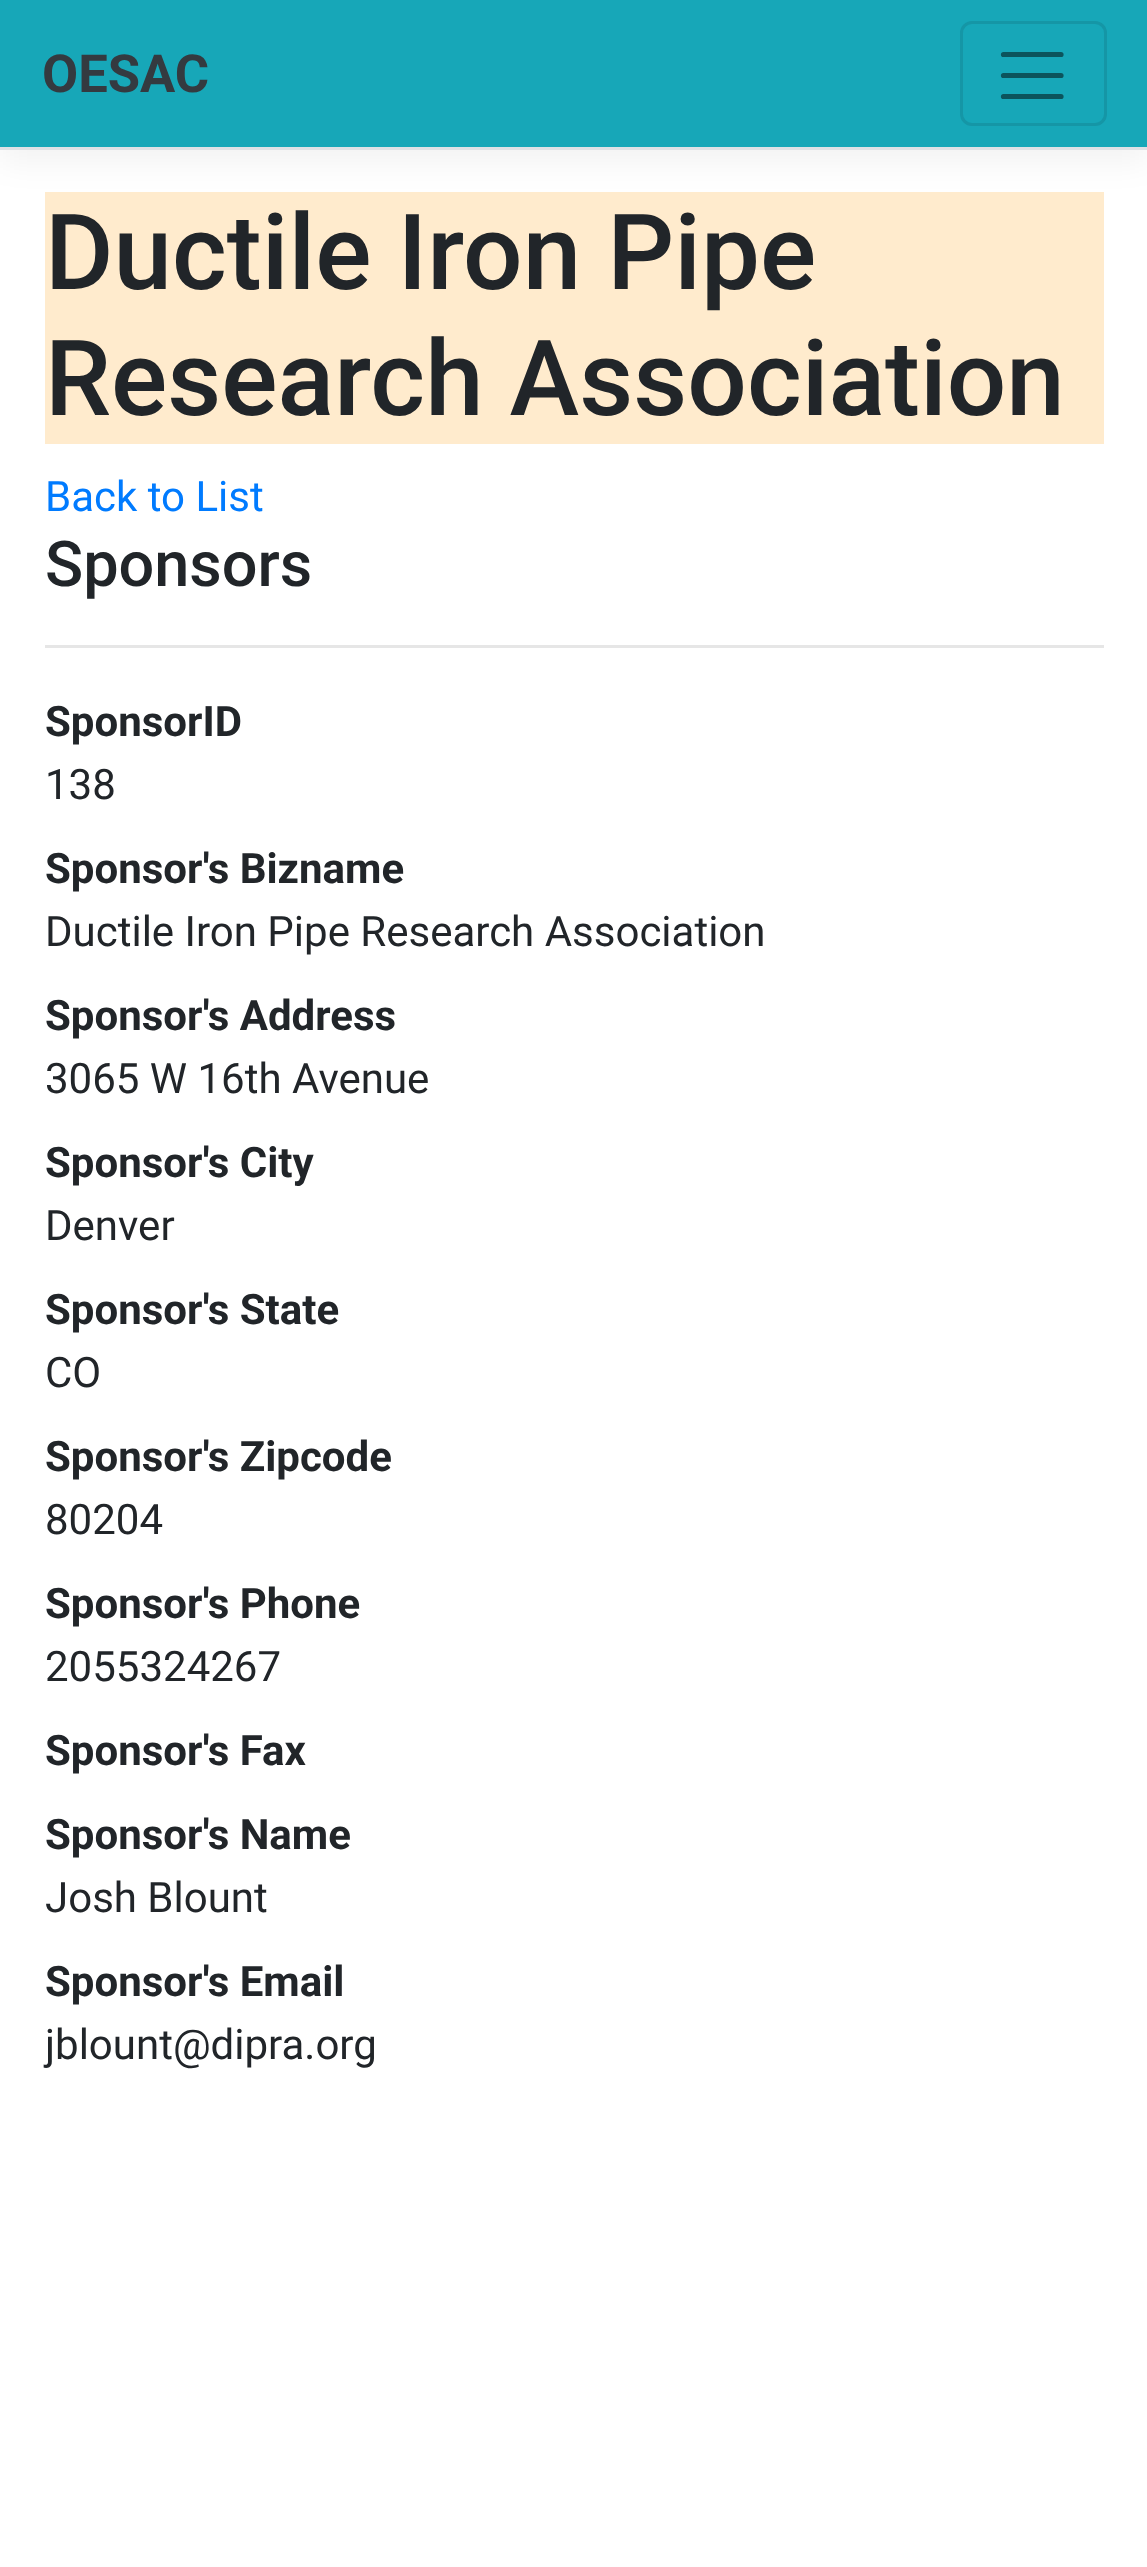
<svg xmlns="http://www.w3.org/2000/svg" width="1147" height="2567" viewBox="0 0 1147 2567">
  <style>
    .t1 { font: bold 52.5px Roboto; fill: #343a40; }
    .t2 { font: 500 105px Roboto; fill: #212529; }
    .t3 { font: 42px Roboto; fill: #007bff; }
    .t4 { font: 500 63px Roboto; fill: #212529; }
    .t5 { font: bold 42px Roboto; fill: #212529; }
    .t6 { font: 42px Roboto; fill: #212529; }
  </style>
  <rect width="100%" height="100%" fill="#fff"/>
  <rect x="45" y="192" width="1059" height="252" fill="#ffebcd"/>
  <rect x="0" y="12" width="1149" height="150" fill="#0000000d" filter="blur(16px)"/>
  <rect x="0" y="0" width="1147" height="147" fill="#17a7b8"/>
  <rect x="0" y="147" width="1147" height="3" fill="#dee2e6"/>
  <text x="42" y="92" class="t1">OESAC</text>
  <rect x="961.5" y="22.5" width="144" height="102" rx="10.5" fill="none" stroke="#1596a6" stroke-width="3"/>
  <path d="M1003.5 54.5H1061M1003.5 75.5H1061M1003.5 96.5H1061" fill="none" stroke="#0c545c" stroke-width="5.2" stroke-linecap="round"/>
  <text x="45" y="289" class="t2">Ductile Iron Pipe</text>
  <text x="45" y="415" class="t2">Research Association</text>
  <text x="45" y="511" class="t3">Back to List</text>
  <text x="45" y="586" class="t4">Sponsors</text>
  <rect x="45" y="645" width="1059" height="3" fill="#e6e6e6"/>
  <text x="45" y="736" class="t5">SponsorID</text>
  <text x="45" y="799" class="t6">138</text>
  <text x="45" y="883" class="t5">Sponsor's Bizname</text>
  <text x="45" y="946" class="t6">Ductile Iron Pipe Research Association</text>
  <text x="45" y="1030" class="t5">Sponsor's Address</text>
  <text x="45" y="1093" class="t6">3065 W 16th Avenue</text>
  <text x="45" y="1177" class="t5">Sponsor's City</text>
  <text x="45" y="1240" class="t6">Denver</text>
  <text x="45" y="1324" class="t5">Sponsor's State</text>
  <text x="45" y="1387" class="t6">CO</text>
  <text x="45" y="1471" class="t5">Sponsor's Zipcode</text>
  <text x="45" y="1534" class="t6">80204</text>
  <text x="45" y="1618" class="t5">Sponsor's Phone</text>
  <text x="45" y="1681" class="t6">2055324267</text>
  <text x="45" y="1765" class="t5">Sponsor's Fax</text>
  <text x="45" y="1849" class="t5">Sponsor's Name</text>
  <text x="45" y="1912" class="t6">Josh Blount</text>
  <text x="45" y="1996" class="t5">Sponsor's Email</text>
  <text x="45" y="2059" class="t6">jblount@dipra.org</text>
</svg>
